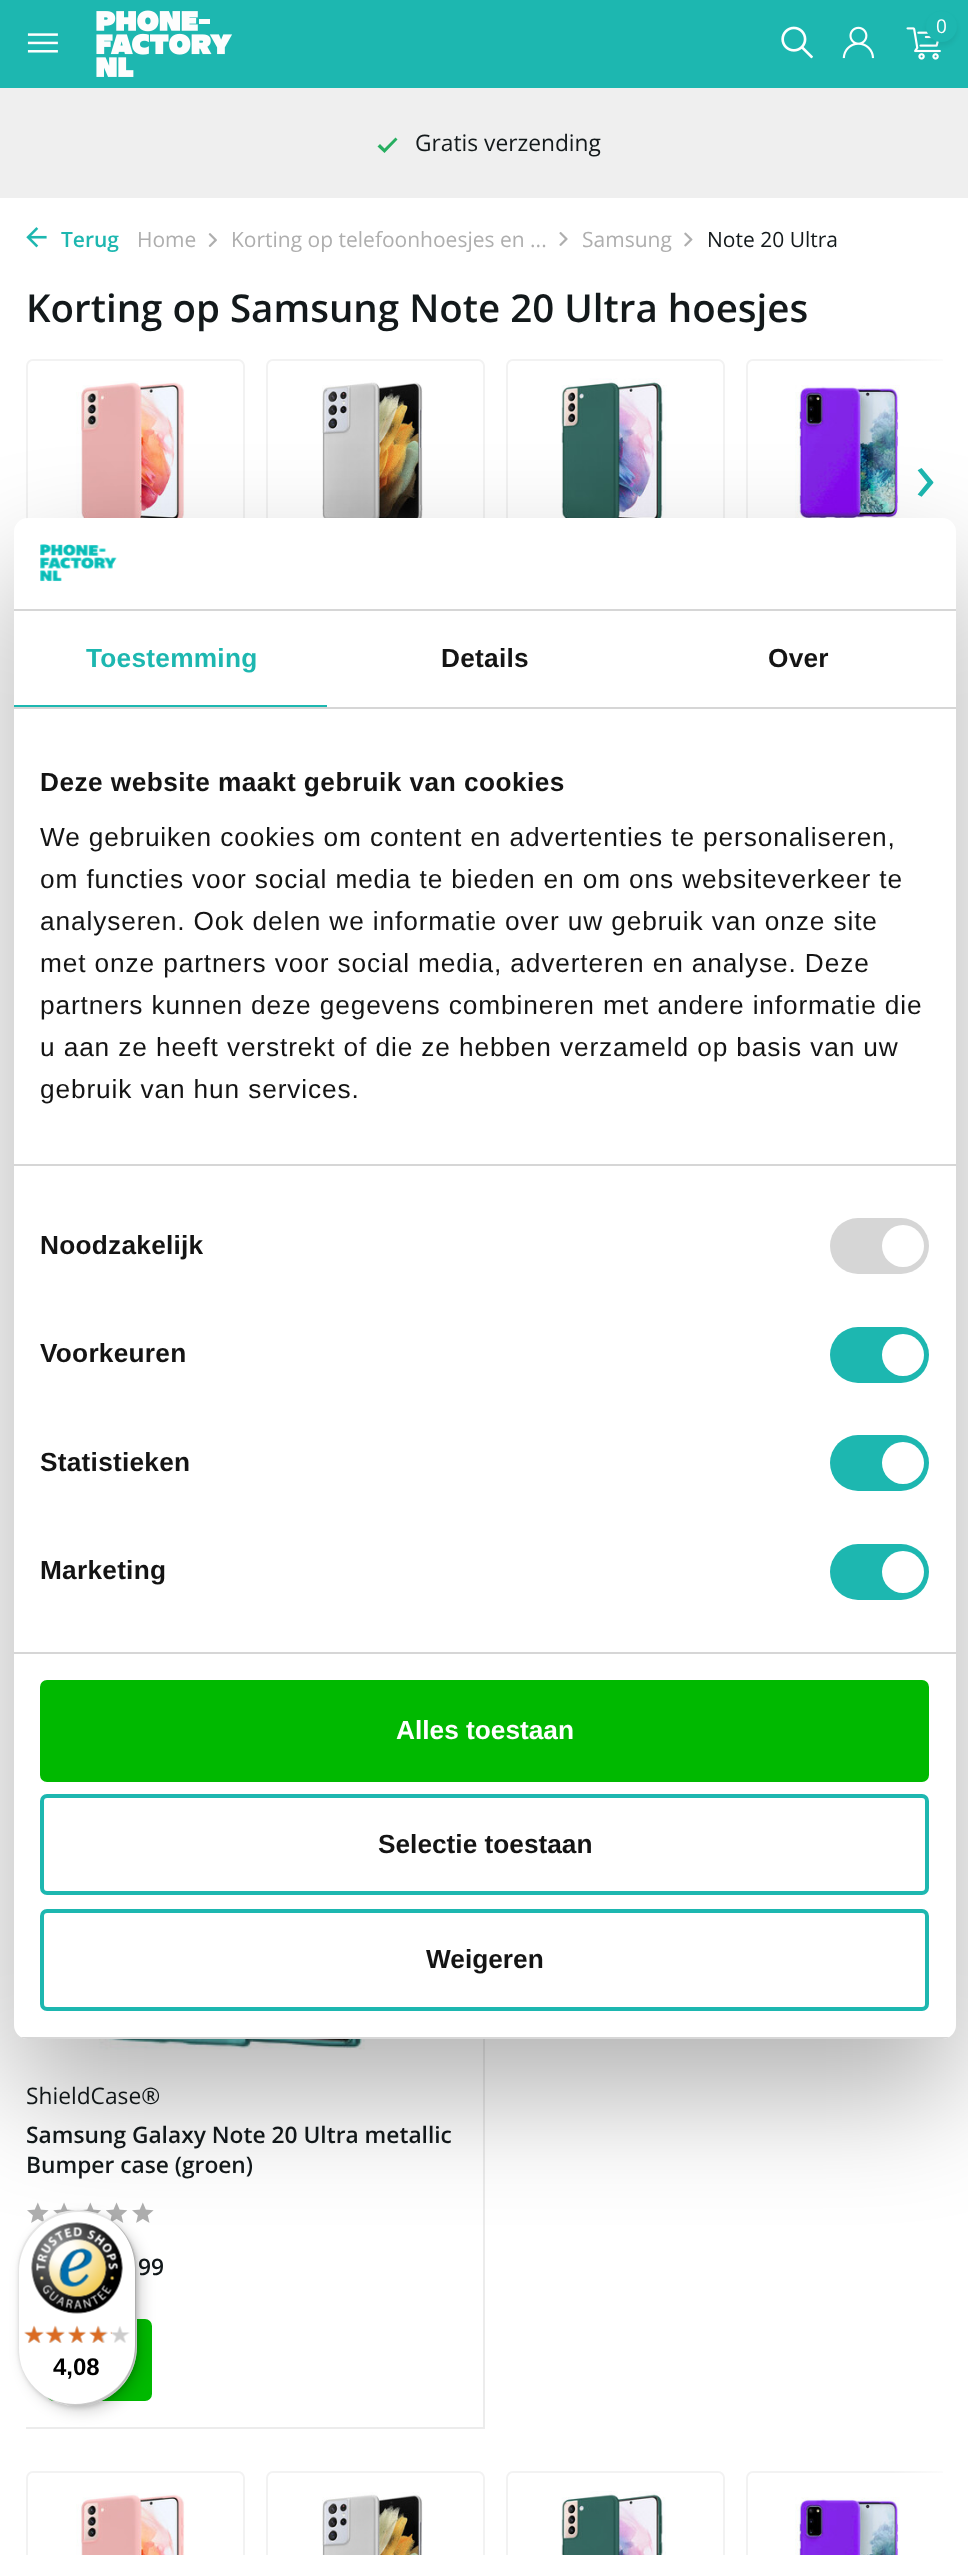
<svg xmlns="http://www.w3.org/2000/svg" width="968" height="2555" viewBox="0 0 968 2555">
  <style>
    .t1 { font: 19px Open Sans; fill: #fff; }
    .t2 { font: 22.75px Open Sans; fill: #13191b; }
    .t3 { font: 600 21px Open Sans; fill: #1db7b0; }
    .t4 { font: 21px Open Sans; fill: #aeaeae; }
    .t5 { font: 21px Open Sans; fill: #13191b; }
    .t6 { font: 600 38.5px Open Sans; fill: #13191b; }
    .t7 { font: 70px Open Sans; fill: #1db7b0; }
    .t8 { font: 600 22.75px Open Sans; fill: #13191b; }
    .t9 { font: bold 26.25px Liberation Sans; letter-spacing: 0.25px; fill: #1db7b0; }
    .t10 { font: bold 26.25px Liberation Sans; letter-spacing: 0.25px; fill: #141414; }
    .t11 { font: bold 26.25px Liberation Sans; letter-spacing: 0.45px; fill: #141414; }
    .t12 { font: 26.25px Liberation Sans; letter-spacing: 0.88px; fill: #141414; }
    .t13 { font: bold 26.25px Liberation Sans; fill: #fff; }
    .t14 { font: bold 26.25px Liberation Sans; fill: #141414; }
    .t15 { font: bold 24px Liberation Sans; fill: #000; }
  </style>
  <defs>
    <clipPath id="clip1"><rect x="26" y="359" width="917" height="233"/></clipPath>
    <linearGradient id="g1" gradientUnits="userSpaceOnUse" x1="961" y1="475" x2="891" y2="475"><stop offset="0" stop-color="#fff"/><stop offset="1" stop-color="#fff" stop-opacity="0"/></linearGradient>
    <clipPath id="clip2"><rect x="26" y="2471" width="917" height="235"/></clipPath>
    <linearGradient id="g2" gradientUnits="userSpaceOnUse" x1="961" y1="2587" x2="891" y2="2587"><stop offset="0" stop-color="#fff"/><stop offset="1" stop-color="#fff" stop-opacity="0"/></linearGradient>
    <clipPath id="clip3"><rect x="14" y="518" width="942" height="1521" rx="14"/></clipPath>
  </defs>
  <rect width="100%" height="100%" fill="#fff"/>
  <rect x="0" y="0" width="968" height="88" fill="#1db7b0"/>
  <image x="27" y="33" width="31" height="20" href="images/1.png"/>
  <image x="96" y="10" width="136" height="67" href="images/2.png"/>
  <image x="781" y="26" width="32" height="33" href="images/3.png"/>
  <image x="842" y="26" width="33" height="33" href="images/4.png"/>
  <image x="906" y="27" width="35" height="33" href="images/5.png"/>
  <rect x="926" y="14" width="31" height="32" rx="15.5" fill="#0000000f" filter="blur(2px)"/>
  <circle cx="941.5" cy="26.5" r="15.5" fill="#1db7b0"/>
  <text x="936" y="33" class="t1">0</text>
  <rect x="0" y="88" width="968" height="110" fill="#efefef"/>
  <path d="M384.5 148.5L395.5 137.5L397.5 139.5L384.5 153L377.5 146.5L380 144Z" fill="#27ae60"/>
  <text x="415" y="151" class="t2">Gratis verzending</text>
  <image x="26" y="227" width="21" height="21" href="images/6.png"/>
  <text x="61" y="247" class="t3">Terug</text>
  <text x="137" y="247" class="t4">Home</text>
  <image x="208" y="233" width="9" height="14" href="images/7.png"/>
  <text x="231" y="247" class="t4">Korting op telefoonhoesjes en ...</text>
  <image x="559" y="232" width="9" height="14" href="images/8.png"/>
  <text x="582" y="247" class="t4">Samsung</text>
  <image x="684" y="232" width="9" height="15" href="images/9.png"/>
  <text x="707" y="247" class="t5">Note 20 Ultra</text>
  <text x="26" y="322" class="t6">Korting op Samsung Note 20 Ultra hoesjes</text>
  <rect x="27" y="360" width="217" height="231" rx="6" fill="none" stroke="#f2f2f2" stroke-width="2"/>
  <image x="76" y="381" width="109" height="137" href="images/10.png"/>
  <rect x="267" y="360" width="217" height="231" rx="6" fill="none" stroke="#f2f2f2" stroke-width="2"/>
  <image x="322" y="380" width="101" height="138" href="images/11.png"/>
  <rect x="507" y="360" width="217" height="231" rx="6" fill="none" stroke="#f2f2f2" stroke-width="2"/>
  <image x="561" y="378" width="106" height="140" href="images/12.png"/>
  <g clip-path="url(#clip1)">
    <rect x="747" y="360" width="216" height="231" rx="6" fill="none" stroke="#f2f2f2" stroke-width="2"/>
  </g>
  <image x="795" y="385" width="105" height="133" href="images/13.png"/>
  <rect x="893" y="359" width="50" height="233" fill="url(#g1)"/>
  <text x="915" y="501" class="t7">›</text>
  <rect x="483" y="2039" width="2" height="390" fill="#ececec"/>
  <rect x="26" y="2427" width="459" height="2" fill="#ececec"/>
  <image x="99" y="2039" width="266" height="11" href="images/14.png"/>
  <text x="26" y="2104" class="t2">ShieldCase®</text>
  <text x="26" y="2143" class="t8">Samsung Galaxy Note 20 Ultra metallic</text>
  <text x="26" y="2173" class="t8">Bumper case (groen)</text>
  <image x="27" y="2202" width="22" height="21" href="images/15.png"/>
  <image x="53" y="2202" width="22" height="12" href="images/16.png"/>
  <image x="79" y="2202" width="22" height="12" href="images/17.png"/>
  <image x="106" y="2202" width="22" height="21" href="images/18.png"/>
  <image x="132" y="2202" width="22" height="21" href="images/15.png"/>
  <text x="138" y="2275" class="t8">99</text>
  <rect x="48" y="2320" width="103" height="80" rx="6" fill="#00b900" stroke="#00b900" stroke-width="2"/>
  <rect x="27" y="2472" width="217" height="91" rx="6" fill="none" stroke="#f2f2f2" stroke-width="2"/>
  <image x="76" y="2493" width="109" height="62" href="images/19.png"/>
  <rect x="267" y="2472" width="217" height="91" rx="6" fill="none" stroke="#f2f2f2" stroke-width="2"/>
  <image x="322" y="2492" width="101" height="63" href="images/20.png"/>
  <rect x="507" y="2472" width="217" height="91" rx="6" fill="none" stroke="#f2f2f2" stroke-width="2"/>
  <image x="561" y="2491" width="105" height="64" href="images/21.png"/>
  <g clip-path="url(#clip2)">
    <rect x="747" y="2472" width="216" height="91" rx="6" fill="none" stroke="#f2f2f2" stroke-width="2"/>
  </g>
  <image x="795" y="2497" width="105" height="58" href="images/22.png"/>
  <rect x="893" y="2471" width="50" height="84" fill="url(#g2)"/>
  <rect x="14" y="574" width="942" height="1521" rx="14" fill="#0000004d" filter="blur(59.5px)"/>
  <rect x="14" y="518" width="942" height="1521" rx="14" fill="#fff"/>
  <rect x="14" y="609" width="942" height="2" fill="#d6d6d6"/>
  <image x="40" y="544" width="77" height="38" href="images/23.png"/>
  <rect x="14" y="707" width="942" height="2" fill="#d6d6d6"/>
  <rect x="14" y="705" width="313" height="2" fill="#1db7b0"/>
  <text x="86" y="667" class="t9">Toestemming</text>
  <text x="441" y="667" class="t10">Details</text>
  <text x="768" y="667" class="t10">Over</text>
  <rect x="14" y="1164" width="942" height="2" fill="#d6d6d6"/>
  <text x="40" y="791" class="t11">Deze website maakt gebruik van cookies</text>
  <text x="40" y="846" class="t12">We gebruiken cookies om content en advertenties te personaliseren,</text>
  <text x="40" y="888" class="t12">om functies voor social media te bieden en om ons websiteverkeer te</text>
  <text x="40" y="930" class="t12">analyseren. Ook delen we informatie over uw gebruik van onze site</text>
  <text x="40" y="972" class="t12">met onze partners voor social media, adverteren en analyse. Deze</text>
  <text x="40" y="1014" class="t12">partners kunnen deze gegevens combineren met andere informatie die</text>
  <text x="40" y="1056" class="t12">u aan ze heeft verstrekt of die ze hebben verzameld op basis van uw</text>
  <text x="40" y="1098" class="t12">gebruik van hun services.</text>
  <rect x="14" y="1652" width="942" height="2" fill="#d6d6d6"/>
  <text x="40" y="1254" class="t10">Noodzakelijk</text>
  <rect x="830" y="1218" width="99" height="56" rx="28" fill="#d6d6d6"/>
  <circle cx="903" cy="1246" r="21" fill="#fff"/>
  <text x="40" y="1362" class="t10">Voorkeuren</text>
  <rect x="830" y="1327" width="99" height="56" rx="28" fill="#1db7b0"/>
  <circle cx="903" cy="1355" r="21" fill="#fff"/>
  <text x="40" y="1471" class="t10">Statistieken</text>
  <rect x="830" y="1435" width="99" height="56" rx="28" fill="#1db7b0"/>
  <circle cx="903" cy="1463" r="21" fill="#fff"/>
  <text x="40" y="1579" class="t10">Marketing</text>
  <rect x="830" y="1544" width="99" height="56" rx="28" fill="#1db7b0"/>
  <circle cx="903" cy="1572" r="21" fill="#fff"/>
  <g clip-path="url(#clip3)">
    <rect x="14" y="2037" width="942" height="2" fill="#d6d6d6"/>
  </g>
  <rect x="42" y="1682" width="885" height="98" rx="5" fill="#00b900" stroke="#00b900" stroke-width="4"/>
  <text x="396" y="1739" class="t13">Alles toestaan</text>
  <rect x="42" y="1796" width="885" height="97" rx="5" fill="none" stroke="#1db7b0" stroke-width="4"/>
  <text x="378" y="1853" class="t14">Selectie toestaan</text>
  <rect x="42" y="1911" width="885" height="98" rx="5" fill="none" stroke="#1db7b0" stroke-width="4"/>
  <text x="426" y="1968" class="t14">Weigeren</text>
  <rect x="23" y="2216" width="119" height="196" rx="59.5" fill="#00000026" filter="blur(7px)"/>
  <rect x="19" y="2212" width="119" height="196" rx="59.5" fill="#00000026" filter="blur(2px)"/>
  <rect x="18" y="2210" width="119" height="196" rx="59.5" fill="#fff"/>
  <path d="M79 2212C102 2212 122 2225 132 2245C122 2224 102 2210 78 2210C45 2210 18 2237 18 2270V2346C18 2359 22 2370 28 2380C22 2371 19 2360 19 2348V2272C19 2239 46 2212 79 2212Z" fill="#0000001a"/>
  <path d="M41 2393C51 2401 64 2406 78 2406C110 2406 137 2379 137 2346V2270C137 2250 128 2234 114 2223C127 2234 135 2250 135 2268V2345C135 2378 108 2404 75 2404C62 2404 50 2400 41 2393Z" fill="#00000033"/>
  <path d="M49 2399C58 2403 67 2406 78 2406C110 2406 137 2379 137 2346V2270C137 2247 125 2228 106 2217C124 2228 135 2247 135 2269V2346C135 2379 109 2405 76 2405C66 2405 57 2403 49 2399Z" fill="#32323233"/>
  <path d="M47 2397C56 2403 66 2406 78 2406C110 2406 137 2379 137 2346V2270C137 2249 126 2231 110 2220C126 2231 136 2249 136 2269V2346C136 2379 109 2405 76 2405C65 2405 55 2402 47 2397Z" fill="#ffffff4d"/>
  <image x="31" y="2222" width="92" height="92" href="images/24.png"/>
  <image x="24" y="2326" width="20" height="17" href="images/30.png"/>
  <image x="24" y="2325" width="20" height="18" href="images/25.png"/>
  <image x="47" y="2326" width="18" height="17" href="images/31.png"/>
  <image x="45" y="2325" width="20" height="18" href="images/26.png"/>
  <image x="68" y="2326" width="18" height="17" href="images/32.png"/>
  <image x="68" y="2325" width="18" height="18" href="images/27.png"/>
  <image x="90" y="2326" width="18" height="17" href="images/33.png"/>
  <image x="89" y="2325" width="18" height="18" href="images/28.png"/>
  <image x="110" y="2326" width="20" height="17" href="images/34.png"/>
  <image x="110" y="2331" width="2" height="3" href="images/29.png"/>
  <text x="53" y="2375" class="t15">4,08</text>
</svg>
